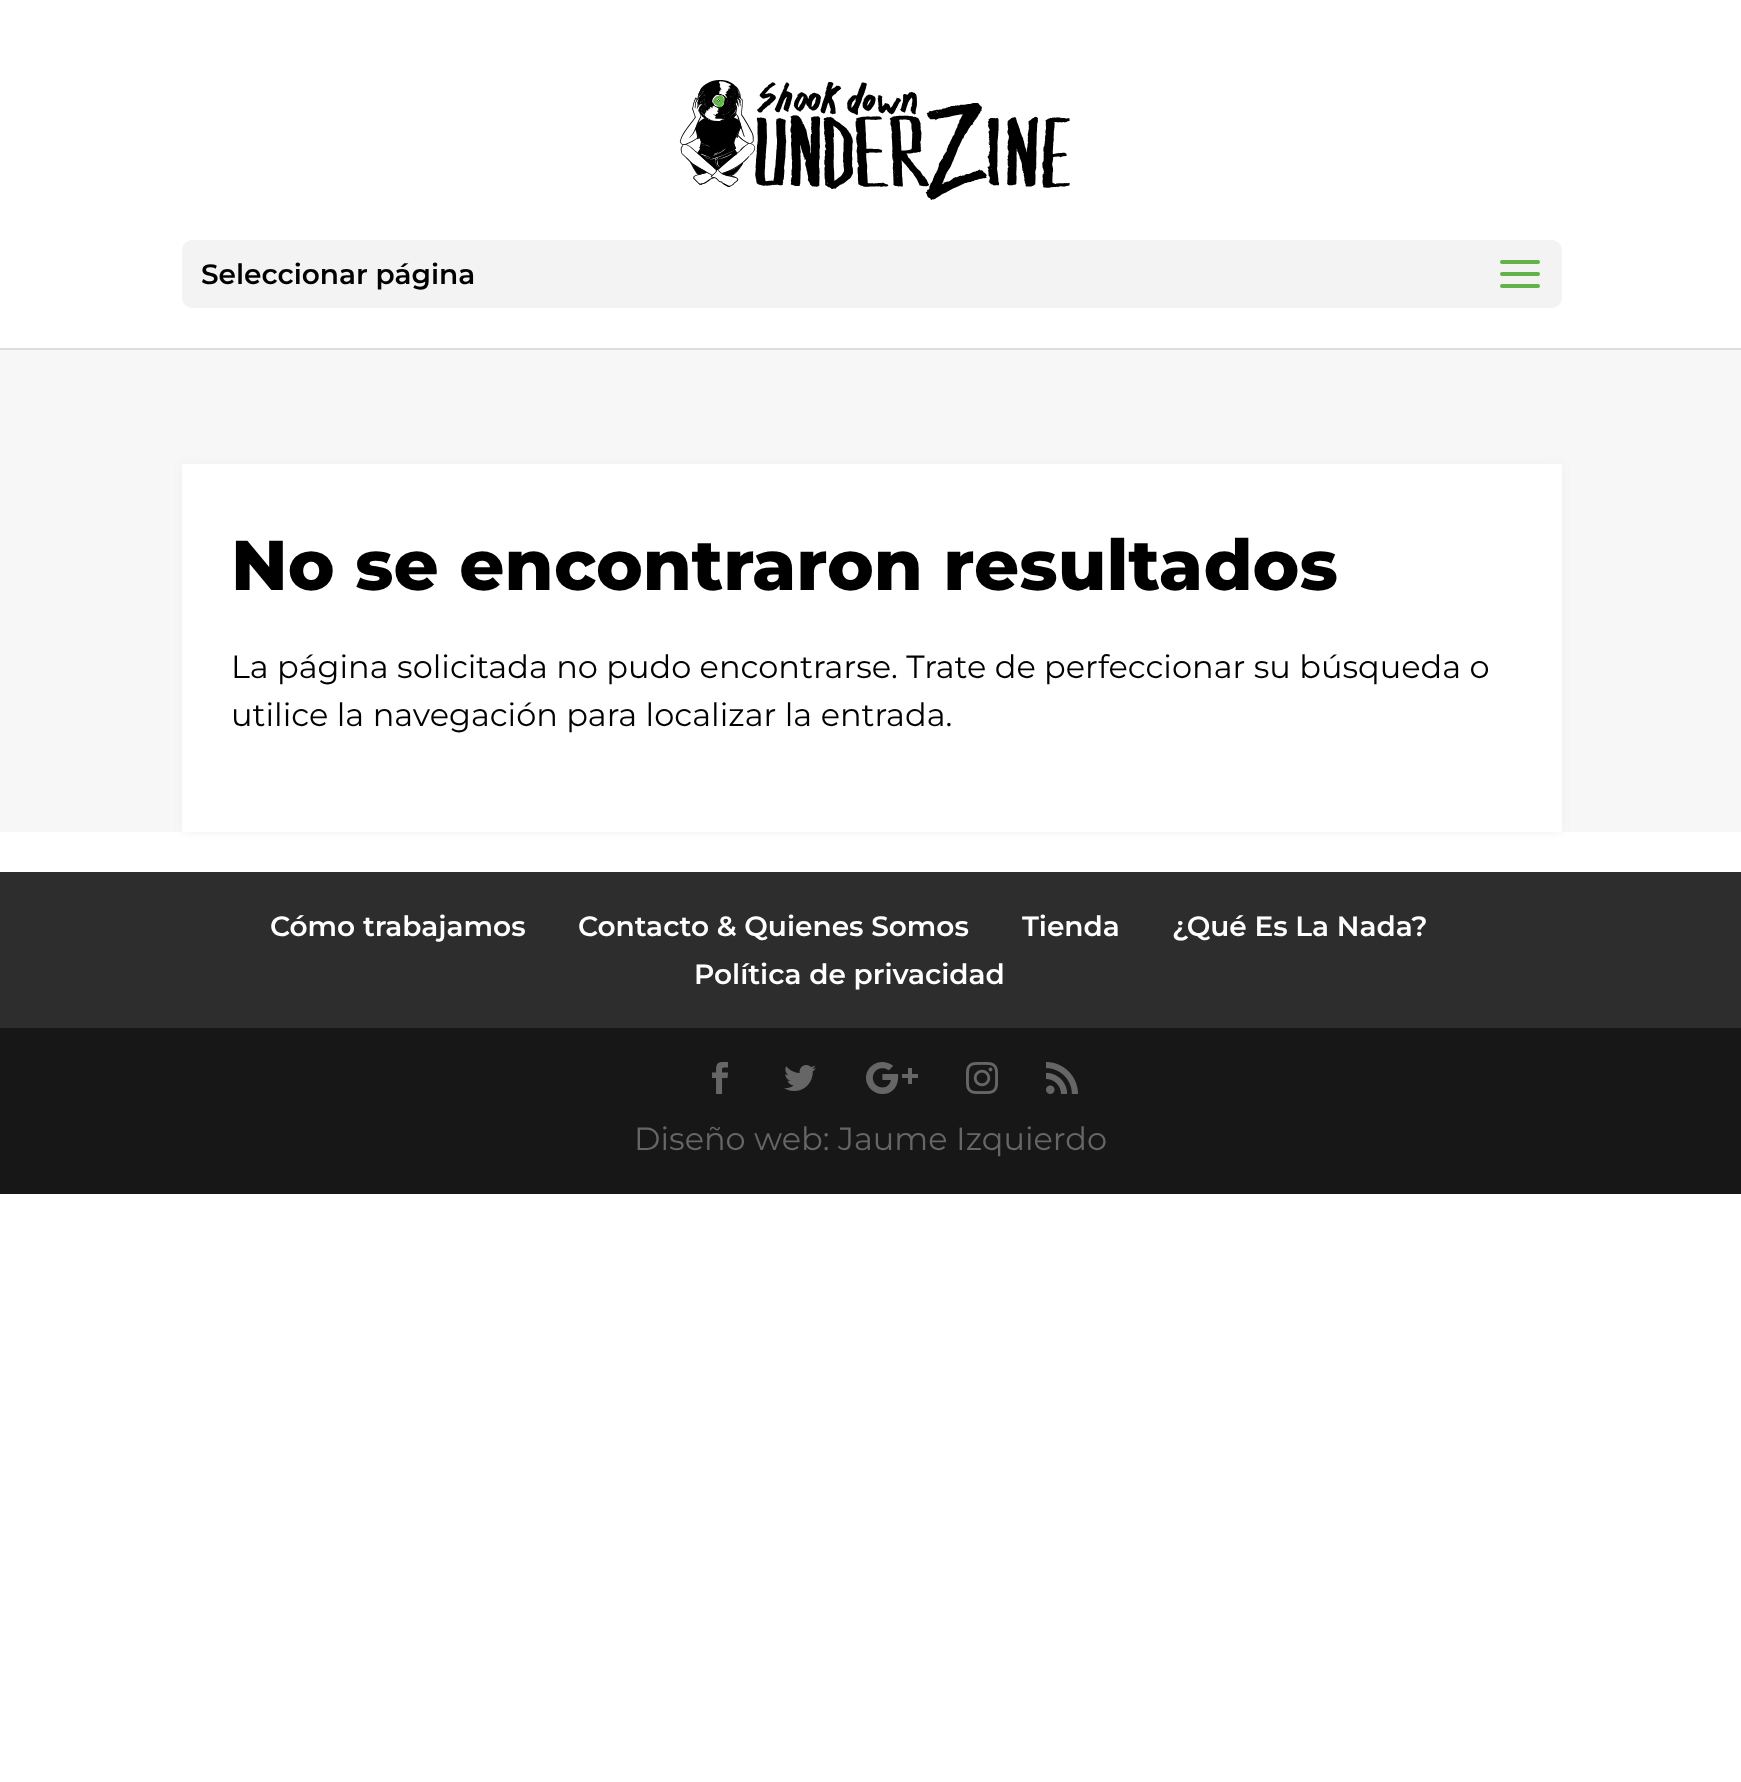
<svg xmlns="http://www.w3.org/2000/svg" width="1741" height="1782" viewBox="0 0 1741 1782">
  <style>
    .t1 { font: 600 28px Montserrat; fill: #000; }
    .t2 { font: 800 70.4px Montserrat; fill: #000; }
    .t3 { font: 32px Montserrat; fill: #000; }
    .t4 { font: 600 28px Montserrat; fill: #fff; }
    .t5 { font: 32px Montserrat; fill: #666; }
  </style>
  <rect width="100%" height="100%" fill="#fff"/>
  <rect x="0" y="348" width="1741" height="2" fill="#dedede"/>
  <image x="679" y="80" width="391" height="120" href="images/1.png"/>
  <rect x="182" y="240" width="1380" height="68" rx="10" fill="#f3f3f3"/>
  <text x="201" y="284" class="t1">Seleccionar página</text>
  <image x="1500" y="260" width="40" height="28" href="images/2.png"/>
  <rect x="0" y="350" width="1741" height="482" fill="#f7f7f7"/>
  <rect x="182" y="464" width="1380" height="368" fill="#eceff1" filter="blur(5px)"/>
  <rect x="182" y="464" width="1380" height="368" fill="#fff"/>
  <text x="231" y="590" class="t2">No se encontraron resultados</text>
  <text x="231" y="678" class="t3">La página solicitada no pudo encontrarse. Trate de perfeccionar su búsqueda o</text>
  <text x="231" y="726" class="t3">utilice la navegación para localizar la entrada.</text>
  <rect x="0" y="872" width="1741" height="156" fill="#2d2d2d"/>
  <text x="270" y="936" class="t4">Cómo trabajamos</text>
  <text x="578" y="936" class="t4">Contacto &amp; Quienes Somos</text>
  <text x="1022" y="936" class="t4">Tienda</text>
  <text x="1172" y="936" class="t4">¿Qué Es La Nada?</text>
  <text x="694" y="984" class="t4">Política de privacidad</text>
  <rect x="0" y="1028" width="1741" height="166" fill="#171717"/>
  <image x="712" y="1062" width="16" height="32" href="images/3.png"/>
  <image x="784" y="1065" width="32" height="26" href="images/4.png"/>
  <image x="866" y="1062" width="52" height="32" href="images/5.png"/>
  <image x="966" y="1062" width="32" height="32" href="images/6.png"/>
  <image x="1046" y="1062" width="32" height="32" href="images/7.png"/>
  <text x="634" y="1150" class="t5">Diseño web: Jaume Izquierdo</text>
</svg>
